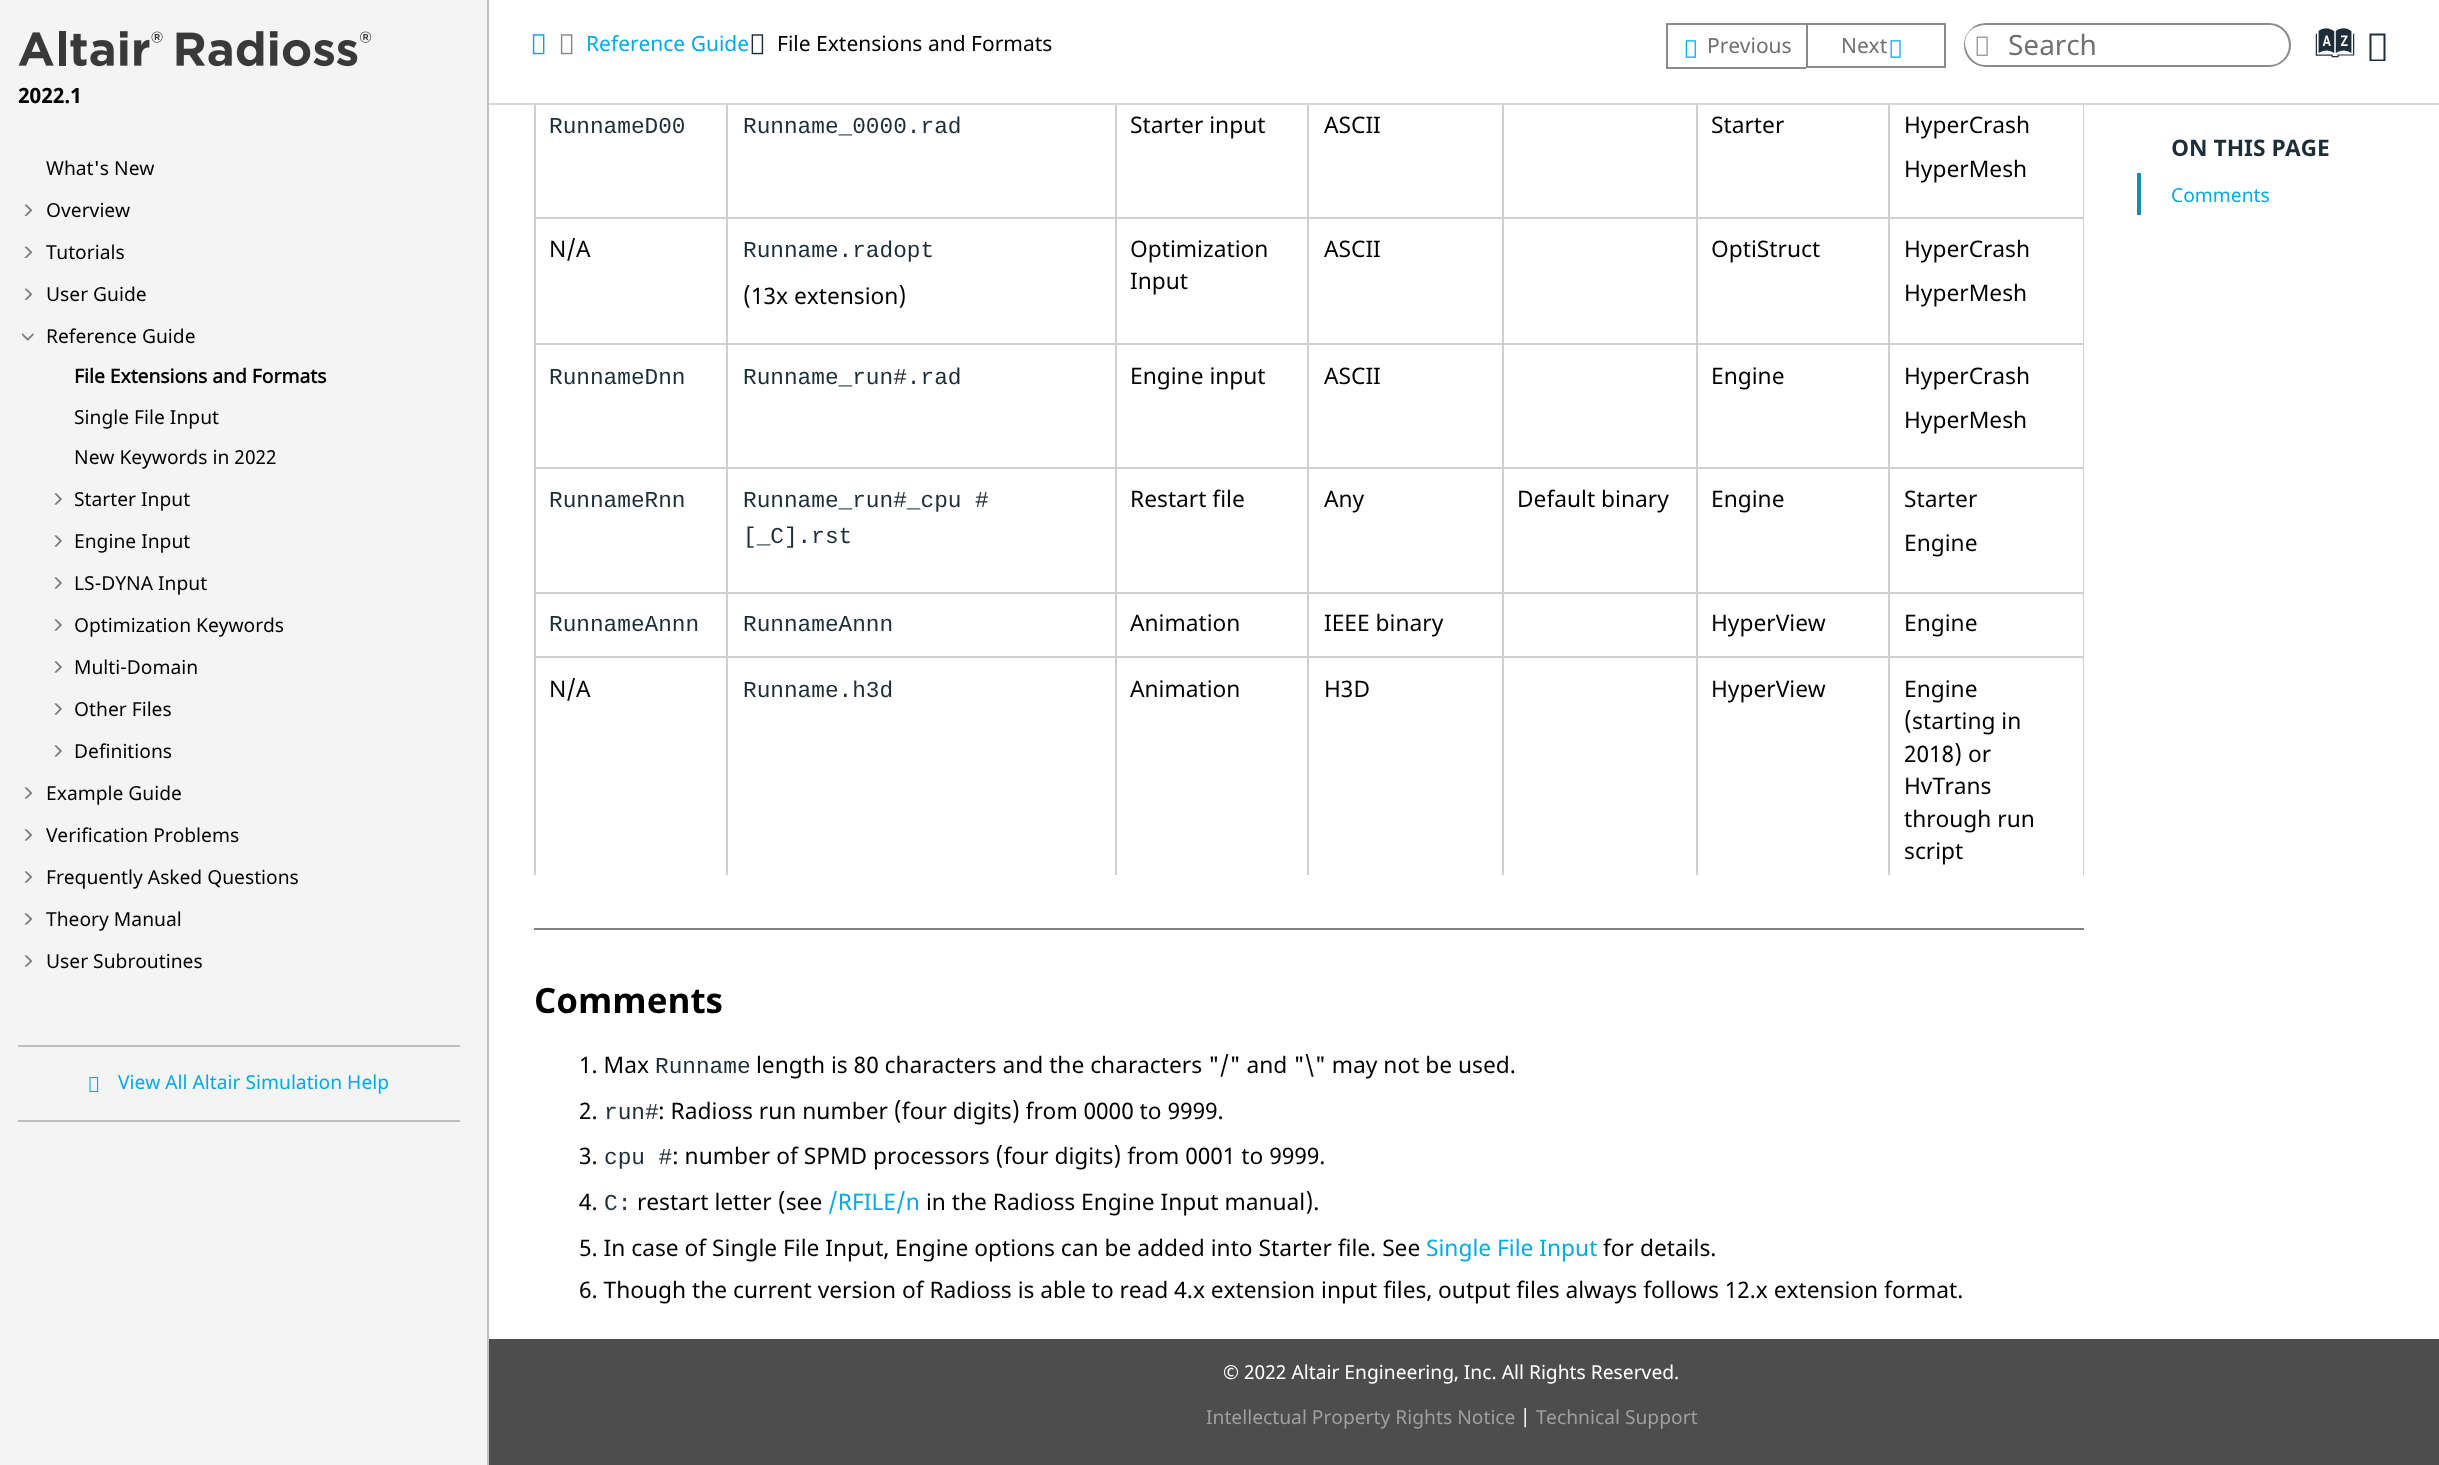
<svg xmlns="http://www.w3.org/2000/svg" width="2439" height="1465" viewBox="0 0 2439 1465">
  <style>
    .t1 { font: bold 21px Noto Sans; fill: #000; }
    .t2 { font: 19.25px Noto Sans; fill: #000; }
    .t3 { font: bold 19.25px 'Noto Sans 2'; fill: #000; }
    .t4 { font: 19.25px Noto Sans; fill: #00aae6; }
    .t5 { font: 21px Noto Sans; fill: #00aae6; }
    .t6 { font: 21px Noto Sans; fill: #000; }
    .t7 { font: 21px Noto Sans; fill: #707070; }
    .t8 { font: 28px Noto Sans; fill: #707070; }
    .t9 { font: 41px Oxygen; fill: #1d2e38; }
    .t10 { font: 22.75px Liberation Mono; fill: #1d2e38; }
    .t11 { font: 22.75px Noto Sans; fill: #000; }
    .t12 { font: bold 35px Noto Sans; fill: #000; }
    .t13 { font: 22.75px Noto Sans; fill: #00aae6; }
    .t14 { font: bold 22.75px Noto Sans; fill: #1d2e38; }
    .t15 { font: 19.25px Noto Sans; fill: #fff; }
    .t16 { font: 19.25px Noto Sans; fill: #9f9f9f; }
  </style>
  <rect width="100%" height="100%" fill="#fff"/>
  <rect x="0" y="0" width="487" height="1465" fill="#f4f4f4"/>
  <rect x="487" y="0" width="2" height="1465" fill="#c0c0c0"/>
  <image x="18" y="31" width="354" height="36" href="images/1.png"/>
  <text x="18" y="103" class="t1">2022.1</text>
  <text x="46" y="175" class="t2">What's New</text>
  <image x="24" y="204" width="9" height="12" href="images/2.png"/>
  <text x="46" y="217" class="t2">Overview</text>
  <image x="24" y="246" width="9" height="12" href="images/2.png"/>
  <text x="46" y="259" class="t2">Tutorials</text>
  <image x="24" y="288" width="9" height="12" href="images/2.png"/>
  <text x="46" y="301" class="t2">User Guide</text>
  <image x="22" y="333" width="12" height="8" href="images/3.png"/>
  <text x="46" y="343" class="t2">Reference Guide</text>
  <text x="74" y="383" class="t3">File Extensions and Formats</text>
  <text x="74" y="424" class="t2">Single File Input</text>
  <text x="74" y="464" class="t2">New Keywords in 2022</text>
  <image x="54" y="493" width="8" height="12" href="images/4.png"/>
  <text x="74" y="506" class="t2">Starter Input</text>
  <image x="54" y="535" width="8" height="12" href="images/4.png"/>
  <text x="74" y="548" class="t2">Engine Input</text>
  <image x="54" y="577" width="8" height="12" href="images/4.png"/>
  <text x="74" y="590" class="t2">LS-DYNA Input</text>
  <image x="54" y="619" width="8" height="12" href="images/4.png"/>
  <text x="74" y="632" class="t2">Optimization Keywords</text>
  <image x="54" y="661" width="8" height="12" href="images/4.png"/>
  <text x="74" y="674" class="t2">Multi-Domain</text>
  <image x="54" y="703" width="8" height="12" href="images/4.png"/>
  <text x="74" y="716" class="t2">Other Files</text>
  <image x="54" y="745" width="8" height="12" href="images/4.png"/>
  <text x="74" y="758" class="t2">Definitions</text>
  <image x="24" y="787" width="9" height="12" href="images/5.png"/>
  <text x="46" y="800" class="t2">Example Guide</text>
  <image x="24" y="829" width="9" height="12" href="images/5.png"/>
  <text x="46" y="842" class="t2">Verification Problems</text>
  <image x="24" y="871" width="9" height="12" href="images/5.png"/>
  <text x="46" y="884" class="t2">Frequently Asked Questions</text>
  <image x="24" y="913" width="9" height="12" href="images/5.png"/>
  <text x="46" y="926" class="t2">Theory Manual</text>
  <image x="24" y="955" width="9" height="12" href="images/5.png"/>
  <text x="46" y="968" class="t2">User Subroutines</text>
  <rect x="18" y="1045" width="442" height="2" fill="#bebebe"/>
  <rect x="18" y="1120" width="442" height="2" fill="#bebebe"/>
  <image x="89" y="1077" width="10" height="15" href="images/6.png"/>
  <text x="118" y="1089" class="t4">View All Altair Simulation Help</text>
  <rect x="489" y="103" width="1950" height="2" fill="#d8d8d8"/>
  <image x="532" y="34" width="13" height="21" href="images/7.png"/>
  <image x="560" y="34" width="13" height="21" href="images/8.png"/>
  <text x="586" y="51" class="t5">Reference Guide</text>
  <image x="751" y="34" width="13" height="21" href="images/9.png"/>
  <text x="777" y="51" class="t6">File Extensions and Formats</text>
  <rect x="1666" y="23" width="140" height="2" fill="#8b8b8b"/>
  <rect x="1666" y="67" width="140" height="2" fill="#8b8b8b"/>
  <rect x="1666" y="23" width="2" height="45" fill="#8b8b8b"/>
  <image x="1685" y="40" width="11" height="18" href="images/10.png"/>
  <text x="1707" y="53" class="t7">Previous</text>
  <rect x="1807" y="24" width="138" height="43" fill="none" stroke="#8b8b8b" stroke-width="2"/>
  <text x="1841" y="53" class="t7">Next</text>
  <image x="1890" y="40" width="11" height="18" href="images/11.png"/>
  <rect x="1965" y="24" width="325" height="42" rx="21" fill="none" stroke="#8b8b8b" stroke-width="2"/>
  <rect x="1965" y="26" width="35" height="34" rx="17" fill="#fff"/>
  <image x="1976" y="36" width="12" height="20" href="images/12.png"/>
  <text x="2008" y="55" class="t8">Search</text>
  <text x="2320" y="62" class="t9">a</text>
  <path d="M2369.5 61V33.5H2385.5V61ZM2371.5 59.5H2383.5V35.5H2371.5Z" fill="#1d2e38"/>
  <rect x="2083" y="105" width="1" height="770" fill="#cfcfcf"/>
  <rect x="534" y="105" width="2" height="770" fill="#cfcfcf"/>
  <text x="549" y="133" class="t10">RunnameD00</text>
  <rect x="1888" y="217" width="196" height="2" fill="#cfcfcf"/>
  <rect x="1888" y="343" width="196" height="2" fill="#cfcfcf"/>
  <rect x="1888" y="467" width="196" height="2" fill="#cfcfcf"/>
  <rect x="1888" y="592" width="196" height="2" fill="#cfcfcf"/>
  <rect x="1888" y="656" width="196" height="2" fill="#cfcfcf"/>
  <rect x="1888" y="656" width="2" height="219" fill="#cfcfcf"/>
  <rect x="1696" y="656" width="194" height="2" fill="#cfcfcf"/>
  <rect x="1888" y="592" width="2" height="66" fill="#cfcfcf"/>
  <rect x="1696" y="592" width="194" height="2" fill="#cfcfcf"/>
  <rect x="1888" y="467" width="2" height="126" fill="#cfcfcf"/>
  <rect x="1696" y="467" width="194" height="2" fill="#cfcfcf"/>
  <rect x="1888" y="343" width="2" height="126" fill="#cfcfcf"/>
  <rect x="1696" y="343" width="194" height="2" fill="#cfcfcf"/>
  <rect x="1888" y="217" width="2" height="128" fill="#cfcfcf"/>
  <rect x="1696" y="217" width="194" height="2" fill="#cfcfcf"/>
  <rect x="1696" y="656" width="2" height="219" fill="#cfcfcf"/>
  <rect x="1502" y="656" width="196" height="2" fill="#cfcfcf"/>
  <rect x="1696" y="592" width="2" height="66" fill="#cfcfcf"/>
  <rect x="1502" y="592" width="196" height="2" fill="#cfcfcf"/>
  <rect x="1696" y="467" width="2" height="126" fill="#cfcfcf"/>
  <rect x="1502" y="467" width="196" height="2" fill="#cfcfcf"/>
  <rect x="1696" y="343" width="2" height="126" fill="#cfcfcf"/>
  <rect x="1502" y="343" width="196" height="2" fill="#cfcfcf"/>
  <rect x="1696" y="217" width="2" height="128" fill="#cfcfcf"/>
  <rect x="1502" y="217" width="196" height="2" fill="#cfcfcf"/>
  <rect x="1502" y="656" width="2" height="219" fill="#cfcfcf"/>
  <rect x="1307" y="656" width="196" height="2" fill="#cfcfcf"/>
  <rect x="1502" y="592" width="2" height="66" fill="#cfcfcf"/>
  <rect x="1307" y="592" width="196" height="2" fill="#cfcfcf"/>
  <rect x="1502" y="467" width="2" height="126" fill="#cfcfcf"/>
  <rect x="1307" y="467" width="196" height="2" fill="#cfcfcf"/>
  <rect x="1502" y="343" width="2" height="126" fill="#cfcfcf"/>
  <rect x="1307" y="343" width="196" height="2" fill="#cfcfcf"/>
  <rect x="1502" y="217" width="2" height="128" fill="#cfcfcf"/>
  <rect x="1307" y="217" width="196" height="2" fill="#cfcfcf"/>
  <rect x="1307" y="656" width="2" height="219" fill="#cfcfcf"/>
  <rect x="1115" y="656" width="194" height="2" fill="#cfcfcf"/>
  <rect x="1307" y="592" width="2" height="66" fill="#cfcfcf"/>
  <rect x="1115" y="592" width="194" height="2" fill="#cfcfcf"/>
  <rect x="1307" y="467" width="2" height="126" fill="#cfcfcf"/>
  <rect x="1115" y="467" width="194" height="2" fill="#cfcfcf"/>
  <rect x="1307" y="343" width="2" height="126" fill="#cfcfcf"/>
  <rect x="1115" y="343" width="194" height="2" fill="#cfcfcf"/>
  <rect x="1307" y="217" width="2" height="128" fill="#cfcfcf"/>
  <rect x="1115" y="217" width="194" height="2" fill="#cfcfcf"/>
  <rect x="1115" y="656" width="2" height="219" fill="#cfcfcf"/>
  <rect x="726" y="656" width="391" height="2" fill="#cfcfcf"/>
  <rect x="1115" y="592" width="2" height="66" fill="#cfcfcf"/>
  <rect x="726" y="592" width="391" height="2" fill="#cfcfcf"/>
  <rect x="1115" y="467" width="2" height="126" fill="#cfcfcf"/>
  <rect x="726" y="467" width="391" height="2" fill="#cfcfcf"/>
  <rect x="1115" y="343" width="2" height="126" fill="#cfcfcf"/>
  <rect x="726" y="343" width="391" height="2" fill="#cfcfcf"/>
  <rect x="1115" y="217" width="2" height="128" fill="#cfcfcf"/>
  <rect x="726" y="217" width="391" height="2" fill="#cfcfcf"/>
  <rect x="726" y="656" width="2" height="219" fill="#cfcfcf"/>
  <rect x="534" y="656" width="194" height="2" fill="#cfcfcf"/>
  <rect x="726" y="592" width="2" height="66" fill="#cfcfcf"/>
  <rect x="534" y="592" width="194" height="2" fill="#cfcfcf"/>
  <rect x="726" y="467" width="2" height="126" fill="#cfcfcf"/>
  <rect x="534" y="467" width="194" height="2" fill="#cfcfcf"/>
  <rect x="726" y="343" width="2" height="126" fill="#cfcfcf"/>
  <rect x="534" y="343" width="194" height="2" fill="#cfcfcf"/>
  <rect x="726" y="217" width="2" height="128" fill="#cfcfcf"/>
  <rect x="534" y="217" width="194" height="2" fill="#cfcfcf"/>
  <rect x="726" y="105" width="2" height="114" fill="#cfcfcf"/>
  <text x="743" y="133" class="t10">Runname_0000.rad</text>
  <rect x="1115" y="105" width="2" height="114" fill="#cfcfcf"/>
  <text x="1130" y="133" class="t11">Starter input</text>
  <rect x="1307" y="105" width="2" height="114" fill="#cfcfcf"/>
  <text x="1324" y="133" class="t11">ASCII</text>
  <rect x="1502" y="105" width="2" height="114" fill="#cfcfcf"/>
  <rect x="1696" y="105" width="2" height="114" fill="#cfcfcf"/>
  <text x="1711" y="133" class="t11">Starter</text>
  <rect x="1888" y="105" width="2" height="114" fill="#cfcfcf"/>
  <text x="1904" y="133" class="t11">HyperCrash</text>
  <text x="1904" y="177" class="t11">HyperMesh</text>
  <text x="549" y="257" class="t11">N/A</text>
  <text x="743" y="257" class="t10">Runname.radopt</text>
  <text x="743" y="304" class="t11">(13x extension)</text>
  <text x="1130" y="257" class="t11">Optimization</text>
  <text x="1130" y="289" class="t11">Input</text>
  <text x="1324" y="257" class="t11">ASCII</text>
  <text x="1711" y="257" class="t11">OptiStruct</text>
  <text x="1904" y="257" class="t11">HyperCrash</text>
  <text x="1904" y="301" class="t11">HyperMesh</text>
  <text x="549" y="384" class="t10">RunnameDnn</text>
  <text x="743" y="384" class="t10">Runname_run#.rad</text>
  <text x="1130" y="384" class="t11">Engine input</text>
  <text x="1324" y="384" class="t11">ASCII</text>
  <text x="1711" y="384" class="t11">Engine</text>
  <text x="1904" y="384" class="t11">HyperCrash</text>
  <text x="1904" y="428" class="t11">HyperMesh</text>
  <text x="549" y="507" class="t10">RunnameRnn</text>
  <text x="743" y="507" class="t10">Runname_run#_cpu #</text>
  <text x="743" y="543" class="t10">[_C].rst</text>
  <text x="1130" y="507" class="t11">Restart file</text>
  <text x="1324" y="507" class="t11">Any</text>
  <text x="1517" y="507" class="t11">Default binary</text>
  <text x="1711" y="507" class="t11">Engine</text>
  <text x="1904" y="507" class="t11">Starter</text>
  <text x="1904" y="551" class="t11">Engine</text>
  <text x="549" y="631" class="t10">RunnameAnnn</text>
  <text x="743" y="631" class="t10">RunnameAnnn</text>
  <text x="1130" y="631" class="t11">Animation</text>
  <text x="1324" y="631" class="t11">IEEE binary</text>
  <text x="1711" y="631" class="t11">HyperView</text>
  <text x="1904" y="631" class="t11">Engine</text>
  <text x="549" y="697" class="t11">N/A</text>
  <text x="743" y="697" class="t10">Runname.h3d</text>
  <text x="1130" y="697" class="t11">Animation</text>
  <text x="1324" y="697" class="t11">H3D</text>
  <text x="1711" y="697" class="t11">HyperView</text>
  <text x="1904" y="697" class="t11">Engine</text>
  <text x="1904" y="729" class="t11">(starting in</text>
  <text x="1904" y="762" class="t11">2018) or</text>
  <text x="1904" y="794" class="t11">HvTrans</text>
  <text x="1904" y="827" class="t11">through run</text>
  <text x="1904" y="859" class="t11">script</text>
  <rect x="534" y="928" width="1550" height="2" fill="#828282"/>
  <text x="534" y="1013" class="t12">Comments</text>
  <text x="579" y="1073" class="t11">1. Max</text>
  <text x="655" y="1073" class="t10">Runname</text>
  <text x="756" y="1073" class="t11">length is 80 characters and the characters "/" and "\" may not be used.</text>
  <text x="579" y="1119" class="t11">2.</text>
  <text x="604" y="1119" class="t10">run#</text>
  <text x="658" y="1119" class="t11">: Radioss run number (four digits) from 0000 to 9999.</text>
  <text x="579" y="1164" class="t11">3.</text>
  <text x="604" y="1164" class="t10">cpu #</text>
  <text x="672" y="1164" class="t11">: number of SPMD processors (four digits) from 0001 to 9999.</text>
  <text x="579" y="1210" class="t11">4.</text>
  <text x="604" y="1210" class="t10">C:</text>
  <text x="637" y="1210" class="t11">restart letter (see</text>
  <text x="828" y="1210" class="t13">/RFILE/n</text>
  <text x="926" y="1210" class="t11">in the Radioss Engine Input manual).</text>
  <text x="579" y="1256" class="t11">5. In case of Single File Input, Engine options can be added into Starter file. See</text>
  <text x="1426" y="1256" class="t13">Single File Input</text>
  <text x="1603" y="1256" class="t11">for details.</text>
  <text x="579" y="1298" class="t11">6. Though the current version of Radioss is able to read 4.x extension input files, output files always follows 12.x extension format.</text>
  <text x="2171" y="156" class="t14">ON THIS PAGE</text>
  <rect x="2137" y="173" width="4" height="42" fill="#0e8fbc"/>
  <text x="2171" y="202" class="t4">Comments</text>
  <rect x="489" y="1339" width="1950" height="126" fill="#4d4d4d"/>
  <text x="1223" y="1379" class="t15">© 2022 Altair Engineering, Inc. All Rights Reserved.</text>
  <text x="1206" y="1424" class="t16">Intellectual Property Rights Notice</text>
  <text x="1520" y="1424" class="t15">|</text>
  <text x="1536" y="1424" class="t16">Technical Support</text>
</svg>
